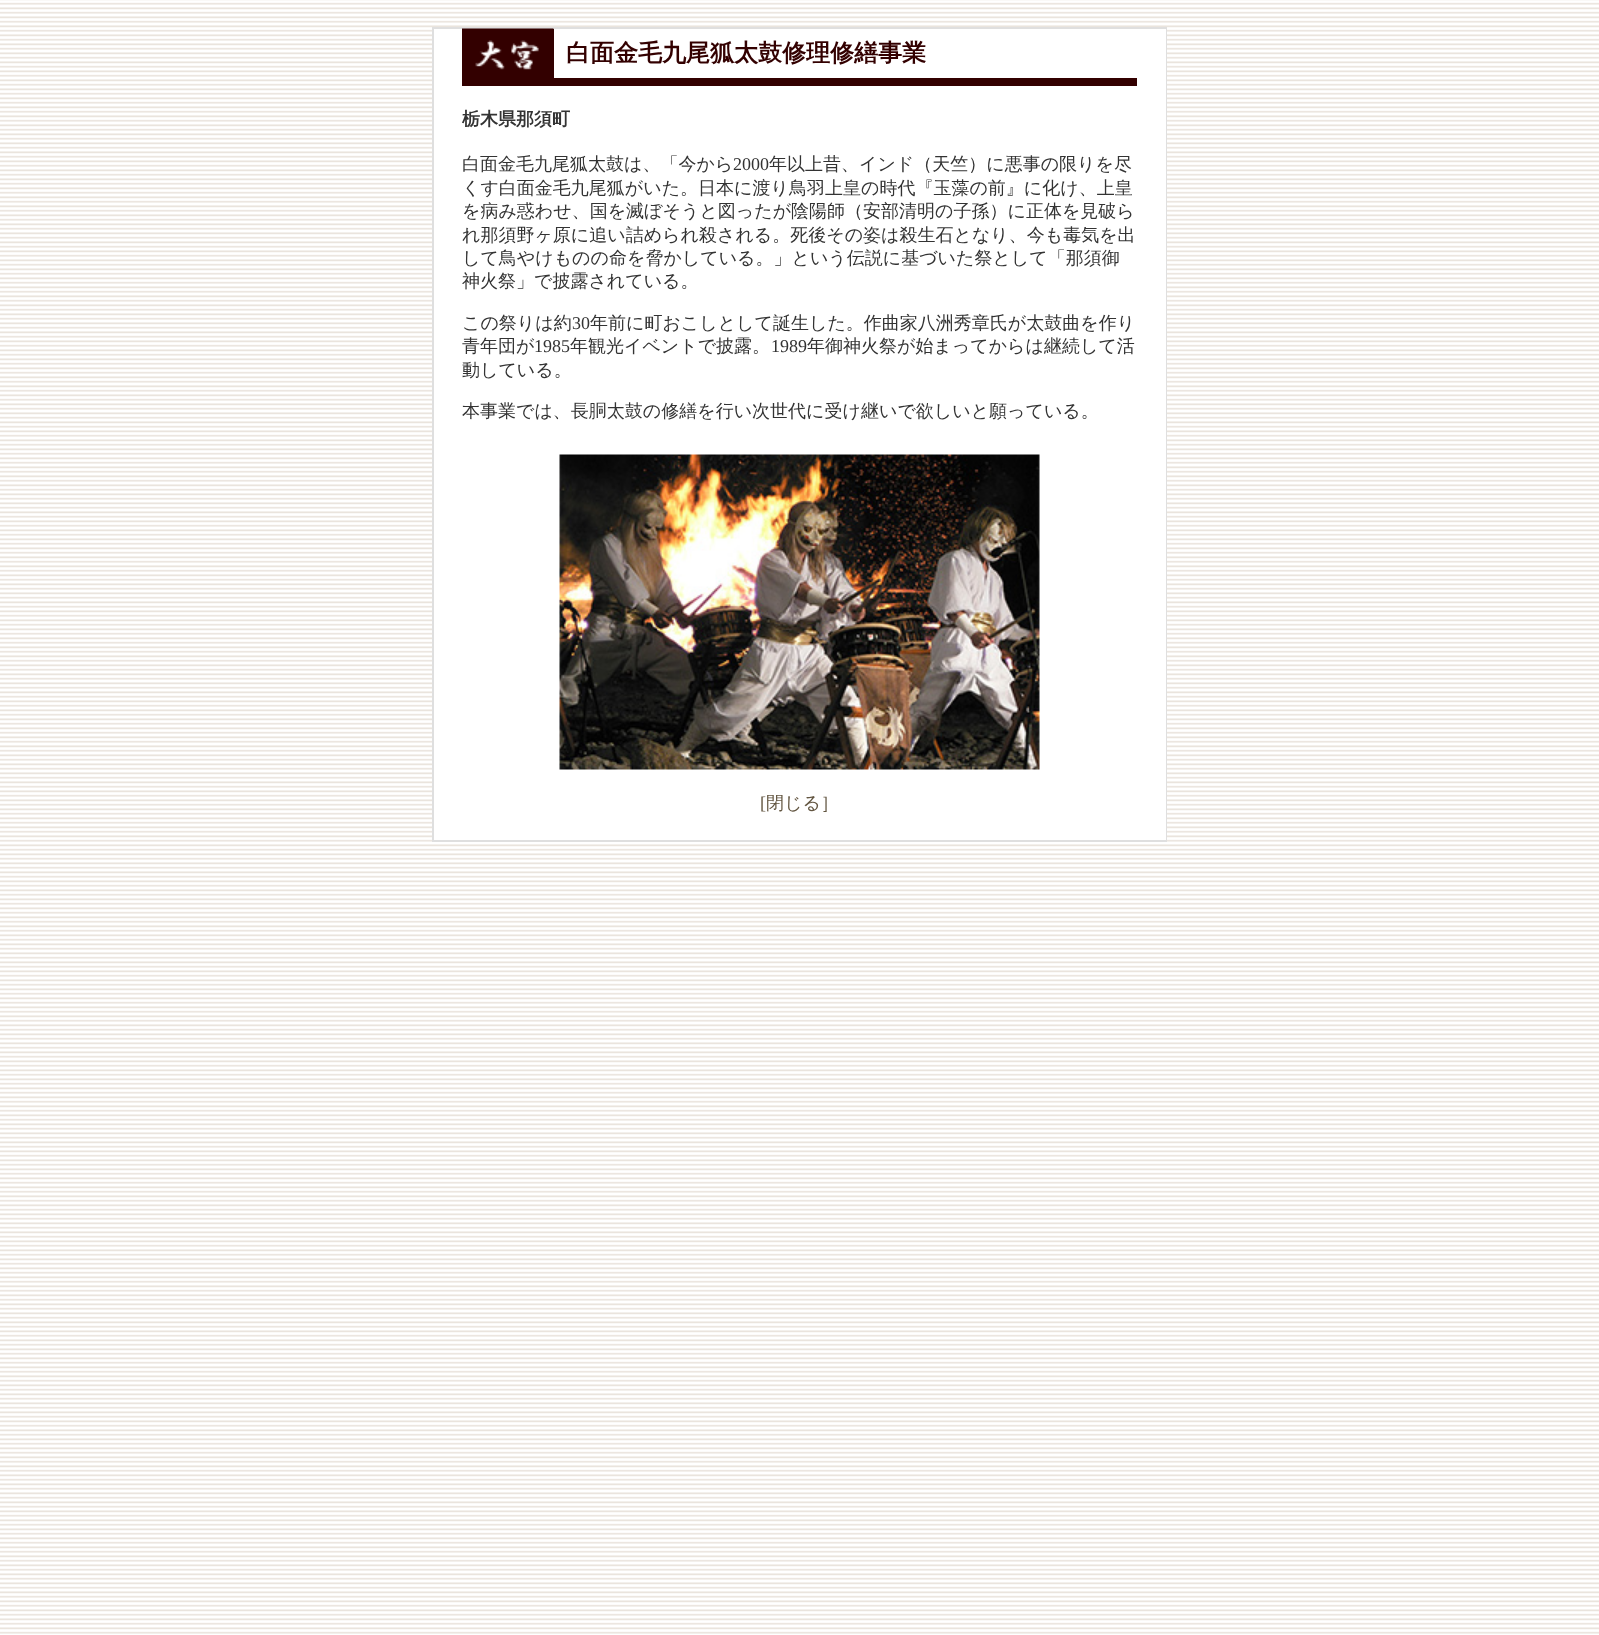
<svg xmlns="http://www.w3.org/2000/svg" width="1599" height="1635" viewBox="0 0 1599 1635">
  <style>
    .t1 { font: bold 24px WenQuanYi Zen Hei; fill: #300; }
    .t2 { font: bold 18px WenQuanYi Zen Hei; fill: #333; }
    .t3 { font: 500 18px WenQuanYi Zen Hei; fill: #333; }
    .t4 { font: 18px Liberation Serif; fill: #333; }
    .t5 { font: 18px Liberation Serif; fill: #625540; }
    .t6 { font: 500 18px WenQuanYi Zen Hei; fill: #625540; }
  </style>
  <rect width="100%" height="100%" fill="#fff"/>
  <image x="0" y="0" width="1599" height="1634" href="images/1.png"/>
  <rect x="432" y="27" width="735" height="815" fill="#dfdfdf"/>
  <rect x="434" y="29" width="732" height="811" fill="#fff"/>
  <rect x="462" y="78" width="675" height="8" fill="#300"/>
  <rect x="462" y="29" width="92" height="49" fill="#300"/>
  <image x="462" y="28" width="92" height="42" href="images/2.png"/>
  <text x="566" y="61" class="t1">白面金毛九尾狐太鼓修理修繕事業</text>
  <text x="462" y="125" class="t2">栃木県那須町</text>
  <text x="462" y="170" class="t3">白面金毛九尾狐太鼓は、「今から</text>
  <text x="733" y="170" class="t4">2000</text>
  <text x="769" y="170" class="t3">年以上昔、インド（天竺）に悪事の限りを尽</text>
  <text x="462" y="194" class="t3">くす白面金毛九尾狐がいた。日本に渡り鳥羽上皇の時代『玉藻の前』に化け、上皇</text>
  <text x="462" y="217" class="t3">を病み惑わせ、国を滅ぼそうと図ったが陰陽師（安部清明の子孫）に正体を見破ら</text>
  <text x="462" y="241" class="t3">れ那須野ヶ原に追い詰められ殺される。死後その姿は殺生石となり、今も毒気を出</text>
  <text x="462" y="264" class="t3">して鳥やけものの命を脅かしている。」という伝説に基づいた祭として「那須御</text>
  <text x="462" y="287" class="t3">神火祭」で披露されている。</text>
  <text x="462" y="329" class="t3">この祭りは約</text>
  <text x="572" y="329" class="t4">30</text>
  <text x="590" y="329" class="t3">年前に町おこしとして誕生した。作曲家八洲秀章氏が太鼓曲を作り</text>
  <text x="462" y="352" class="t3">青年団が</text>
  <text x="534" y="352" class="t4">1985</text>
  <text x="570" y="352" class="t3">年観光イベントで披露。</text>
  <text x="771" y="352" class="t4">1989</text>
  <text x="807" y="352" class="t3">年御神火祭が始まってからは継続して活</text>
  <text x="462" y="376" class="t3">動している。</text>
  <text x="462" y="417" class="t3">本事業では、長胴太鼓の修繕を行い次世代に受け継いで欲しいと願っている。</text>
  <image x="559" y="454" width="481" height="316" href="images/3.png"/>
  <text x="760" y="809" class="t5">[</text>
  <text x="766" y="809" class="t6">閉じる］</text>
</svg>
